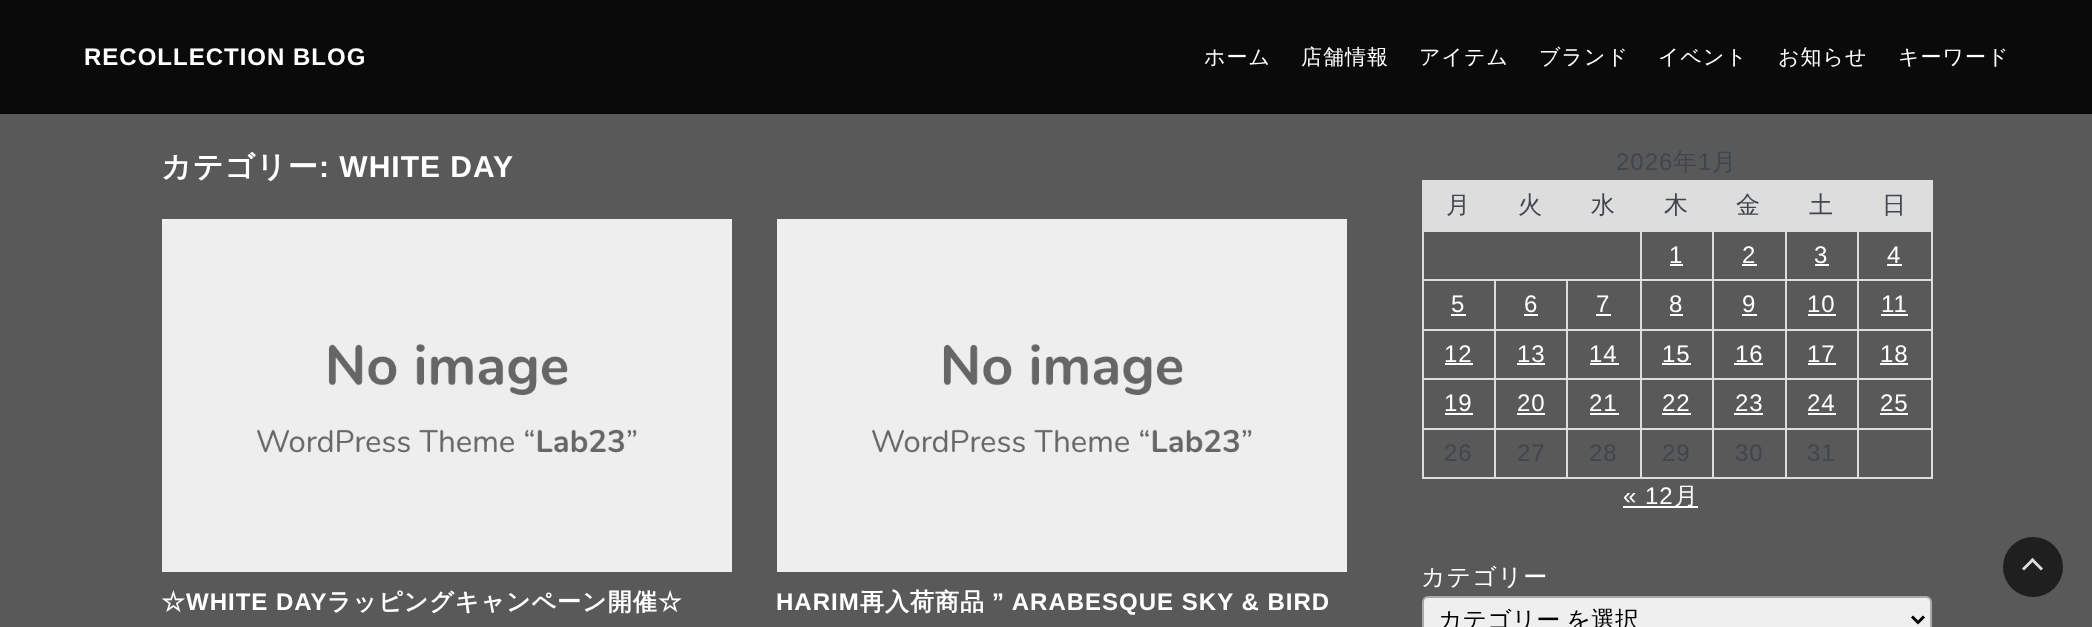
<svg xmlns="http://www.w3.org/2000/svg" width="2092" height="627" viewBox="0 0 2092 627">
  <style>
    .t1 { font: bold 24px Liberation Sans; letter-spacing: 1px; fill: #fff; }
    .t2 { font: 500 21px WenQuanYi Zen Hei; letter-spacing: 1px; fill: #fff; }
    .t3 { font: bold 30px WenQuanYi Zen Hei; letter-spacing: 1px; fill: #fff; }
    .t4 { font: bold 30px Liberation Sans; letter-spacing: 1px; fill: #fff; }
    .t5 { font: bold 24px WenQuanYi Zen Hei; letter-spacing: 1px; fill: #fff; }
    .t6 { font: 24px Liberation Sans; letter-spacing: 1px; fill: #40464d; }
    .t7 { font: 500 24px WenQuanYi Zen Hei; letter-spacing: 1px; fill: #40464d; }
    .t8 { font: 24px Liberation Sans; letter-spacing: 1px; fill: #fff; }
    .t9 { font: 500 24px WenQuanYi Zen Hei; letter-spacing: 1px; fill: #fff; }
    .t10 { font: 500 24px WenQuanYi Zen Hei; fill: #000; }
  </style>
  <rect width="100%" height="100%" fill="#595959"/>
  <rect x="0" y="0" width="2092" height="114" fill="#0a0a0a"/>
  <text x="84" y="65" class="t1">RECOLLECTION BLOG</text>
  <text x="1204" y="64" class="t2">ホーム</text>
  <text x="1301" y="64" class="t2">店舗情報</text>
  <text x="1419" y="64" class="t2">アイテム</text>
  <text x="1539" y="64" class="t2">ブランド</text>
  <text x="1658" y="64" class="t2">イベント</text>
  <text x="1778" y="64" class="t2">お知らせ</text>
  <text x="1898" y="64" class="t2">キーワード</text>
  <text x="161" y="177" class="t3">カテゴリー</text>
  <text x="319" y="177" class="t4">: WHITE DAY</text>
  <rect x="162" y="219" width="570" height="353" fill="#eee"/>
  <image x="257" y="344" width="380" height="109" href="images/1.png"/>
  <text x="161" y="610" class="t5">☆</text>
  <text x="186" y="610" class="t1">WHITE DAY</text>
  <text x="327" y="610" class="t5">ラッピングキャンペーン開催☆</text>
  <rect x="777" y="219" width="570" height="353" fill="#eee"/>
  <image x="872" y="344" width="380" height="109" href="images/1.png"/>
  <text x="776" y="610" class="t1">HARIM</text>
  <text x="860" y="610" class="t5">再入荷商品</text>
  <text x="992" y="610" class="t1">” ARABESQUE SKY &amp; BIRD</text>
  <text x="1616" y="170" class="t6">2026</text>
  <text x="1673" y="170" class="t7">年</text>
  <text x="1698" y="170" class="t6">1</text>
  <text x="1712" y="170" class="t7">月</text>
  <rect x="1422" y="182" width="509" height="48" fill="#ddd"/>
  <text x="1446" y="213" class="t7">月</text>
  <text x="1518" y="213" class="t7">火</text>
  <text x="1591" y="213" class="t7">水</text>
  <text x="1664" y="213" class="t7">木</text>
  <text x="1736" y="213" class="t7">金</text>
  <text x="1809" y="213" class="t7">土</text>
  <rect x="1422" y="180" width="510" height="2" fill="#ddd"/>
  <rect x="1857" y="230" width="75" height="2" fill="#ddd"/>
  <rect x="1857" y="279" width="75" height="2" fill="#ddd"/>
  <rect x="1857" y="329" width="75" height="2" fill="#ddd"/>
  <rect x="1857" y="378" width="75" height="2" fill="#ddd"/>
  <rect x="1857" y="428" width="75" height="2" fill="#ddd"/>
  <rect x="1931" y="428" width="2" height="51" fill="#ddd"/>
  <rect x="1931" y="378" width="2" height="51" fill="#ddd"/>
  <rect x="1931" y="329" width="2" height="51" fill="#ddd"/>
  <rect x="1931" y="279" width="2" height="51" fill="#ddd"/>
  <rect x="1931" y="230" width="2" height="51" fill="#ddd"/>
  <rect x="1931" y="180" width="2" height="51" fill="#ddd"/>
  <text x="1882" y="213" class="t7">日</text>
  <rect x="1857" y="477" width="75" height="2" fill="#ddd"/>
  <rect x="1857" y="428" width="2" height="51" fill="#ddd"/>
  <rect x="1785" y="428" width="74" height="2" fill="#ddd"/>
  <rect x="1857" y="378" width="2" height="51" fill="#ddd"/>
  <rect x="1785" y="378" width="74" height="2" fill="#ddd"/>
  <rect x="1857" y="329" width="2" height="51" fill="#ddd"/>
  <rect x="1785" y="329" width="74" height="2" fill="#ddd"/>
  <rect x="1857" y="279" width="2" height="51" fill="#ddd"/>
  <rect x="1785" y="279" width="74" height="2" fill="#ddd"/>
  <rect x="1857" y="230" width="2" height="51" fill="#ddd"/>
  <rect x="1785" y="230" width="74" height="2" fill="#ddd"/>
  <rect x="1785" y="477" width="74" height="2" fill="#ddd"/>
  <rect x="1785" y="428" width="2" height="51" fill="#ddd"/>
  <rect x="1712" y="428" width="75" height="2" fill="#ddd"/>
  <rect x="1785" y="378" width="2" height="51" fill="#ddd"/>
  <rect x="1712" y="378" width="75" height="2" fill="#ddd"/>
  <rect x="1785" y="329" width="2" height="51" fill="#ddd"/>
  <rect x="1712" y="329" width="75" height="2" fill="#ddd"/>
  <rect x="1785" y="279" width="2" height="51" fill="#ddd"/>
  <rect x="1712" y="279" width="75" height="2" fill="#ddd"/>
  <rect x="1785" y="230" width="2" height="51" fill="#ddd"/>
  <rect x="1712" y="230" width="75" height="2" fill="#ddd"/>
  <rect x="1712" y="477" width="75" height="2" fill="#ddd"/>
  <rect x="1712" y="428" width="2" height="51" fill="#ddd"/>
  <rect x="1640" y="428" width="73" height="2" fill="#ddd"/>
  <rect x="1712" y="378" width="2" height="51" fill="#ddd"/>
  <rect x="1640" y="378" width="73" height="2" fill="#ddd"/>
  <rect x="1712" y="329" width="2" height="51" fill="#ddd"/>
  <rect x="1640" y="329" width="73" height="2" fill="#ddd"/>
  <rect x="1712" y="279" width="2" height="51" fill="#ddd"/>
  <rect x="1640" y="279" width="73" height="2" fill="#ddd"/>
  <rect x="1712" y="230" width="2" height="51" fill="#ddd"/>
  <rect x="1640" y="230" width="73" height="2" fill="#ddd"/>
  <rect x="1640" y="477" width="73" height="2" fill="#ddd"/>
  <rect x="1640" y="428" width="2" height="51" fill="#ddd"/>
  <rect x="1566" y="428" width="75" height="2" fill="#ddd"/>
  <rect x="1640" y="378" width="2" height="51" fill="#ddd"/>
  <rect x="1566" y="378" width="75" height="2" fill="#ddd"/>
  <rect x="1640" y="329" width="2" height="51" fill="#ddd"/>
  <rect x="1566" y="329" width="75" height="2" fill="#ddd"/>
  <rect x="1640" y="279" width="2" height="51" fill="#ddd"/>
  <rect x="1566" y="279" width="75" height="2" fill="#ddd"/>
  <rect x="1640" y="230" width="2" height="51" fill="#ddd"/>
  <rect x="1422" y="230" width="219" height="2" fill="#ddd"/>
  <rect x="1566" y="477" width="75" height="2" fill="#ddd"/>
  <rect x="1566" y="428" width="2" height="51" fill="#ddd"/>
  <rect x="1494" y="428" width="74" height="2" fill="#ddd"/>
  <rect x="1566" y="378" width="2" height="51" fill="#ddd"/>
  <rect x="1494" y="378" width="74" height="2" fill="#ddd"/>
  <rect x="1566" y="329" width="2" height="51" fill="#ddd"/>
  <rect x="1494" y="329" width="74" height="2" fill="#ddd"/>
  <rect x="1566" y="279" width="2" height="51" fill="#ddd"/>
  <rect x="1494" y="279" width="74" height="2" fill="#ddd"/>
  <rect x="1494" y="477" width="74" height="2" fill="#ddd"/>
  <rect x="1494" y="428" width="2" height="51" fill="#ddd"/>
  <rect x="1422" y="428" width="74" height="2" fill="#ddd"/>
  <rect x="1494" y="378" width="2" height="51" fill="#ddd"/>
  <rect x="1422" y="378" width="74" height="2" fill="#ddd"/>
  <rect x="1494" y="329" width="2" height="51" fill="#ddd"/>
  <rect x="1422" y="329" width="74" height="2" fill="#ddd"/>
  <rect x="1494" y="279" width="2" height="51" fill="#ddd"/>
  <rect x="1422" y="279" width="74" height="2" fill="#ddd"/>
  <rect x="1422" y="477" width="74" height="2" fill="#ddd"/>
  <rect x="1422" y="428" width="2" height="51" fill="#ddd"/>
  <rect x="1422" y="378" width="2" height="51" fill="#ddd"/>
  <rect x="1422" y="329" width="2" height="51" fill="#ddd"/>
  <rect x="1422" y="279" width="2" height="51" fill="#ddd"/>
  <rect x="1422" y="230" width="2" height="51" fill="#ddd"/>
  <text x="1669" y="263" class="t8">1</text>
  <rect x="1670" y="264" width="13" height="2" fill="#fff"/>
  <text x="1742" y="263" class="t8">2</text>
  <rect x="1742" y="264" width="15" height="2" fill="#fff"/>
  <text x="1814" y="263" class="t8">3</text>
  <rect x="1815" y="264" width="14" height="2" fill="#fff"/>
  <text x="1887" y="263" class="t8">4</text>
  <rect x="1887" y="264" width="15" height="2" fill="#fff"/>
  <text x="1451" y="312" class="t8">5</text>
  <rect x="1451" y="314" width="15" height="2" fill="#fff"/>
  <text x="1524" y="312" class="t8">6</text>
  <rect x="1524" y="314" width="14" height="2" fill="#fff"/>
  <text x="1596" y="312" class="t8">7</text>
  <rect x="1596" y="314" width="15" height="2" fill="#fff"/>
  <text x="1669" y="312" class="t8">8</text>
  <rect x="1670" y="314" width="13" height="2" fill="#fff"/>
  <text x="1742" y="312" class="t8">9</text>
  <rect x="1742" y="314" width="15" height="2" fill="#fff"/>
  <text x="1807" y="312" class="t8">10</text>
  <rect x="1808" y="314" width="28" height="2" fill="#fff"/>
  <text x="1881" y="312" class="t8">11</text>
  <rect x="1881" y="314" width="27" height="2" fill="#fff"/>
  <text x="1444" y="362" class="t8">12</text>
  <rect x="1445" y="363" width="28" height="2" fill="#fff"/>
  <text x="1517" y="362" class="t8">13</text>
  <rect x="1517" y="363" width="28" height="2" fill="#fff"/>
  <text x="1589" y="362" class="t8">14</text>
  <rect x="1590" y="363" width="29" height="2" fill="#fff"/>
  <text x="1662" y="362" class="t8">15</text>
  <rect x="1662" y="363" width="29" height="2" fill="#fff"/>
  <text x="1735" y="362" class="t8">16</text>
  <rect x="1734" y="363" width="29" height="2" fill="#fff"/>
  <text x="1807" y="362" class="t8">17</text>
  <rect x="1808" y="363" width="28" height="2" fill="#fff"/>
  <text x="1880" y="362" class="t8">18</text>
  <rect x="1880" y="363" width="28" height="2" fill="#fff"/>
  <text x="1444" y="411" class="t8">19</text>
  <rect x="1445" y="413" width="28" height="2" fill="#fff"/>
  <text x="1517" y="411" class="t8">20</text>
  <rect x="1517" y="413" width="28" height="2" fill="#fff"/>
  <text x="1589" y="411" class="t8">21</text>
  <rect x="1590" y="413" width="29" height="2" fill="#fff"/>
  <text x="1662" y="411" class="t8">22</text>
  <rect x="1662" y="413" width="29" height="2" fill="#fff"/>
  <text x="1735" y="411" class="t8">23</text>
  <rect x="1734" y="413" width="29" height="2" fill="#fff"/>
  <text x="1807" y="411" class="t8">24</text>
  <rect x="1808" y="413" width="28" height="2" fill="#fff"/>
  <text x="1880" y="411" class="t8">25</text>
  <rect x="1880" y="413" width="28" height="2" fill="#fff"/>
  <text x="1444" y="461" class="t6">26</text>
  <text x="1517" y="461" class="t6">27</text>
  <text x="1589" y="461" class="t6">28</text>
  <text x="1662" y="461" class="t6">29</text>
  <text x="1735" y="461" class="t6">30</text>
  <text x="1807" y="461" class="t6">31</text>
  <text x="1623" y="504" class="t8">« 12</text>
  <rect x="1623" y="506" width="75" height="2" fill="#fff"/>
  <text x="1674" y="504" class="t9">月</text>
  <text x="1421" y="585" class="t9">カテゴリー</text>
  <rect x="1423" y="597" width="508" height="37" rx="5" fill="#efefef" stroke="#aaa" stroke-width="2"/>
  <path d="M1912 616.5L1918 622.5L1924 616.5" fill="none" stroke="#000" stroke-width="3"/>
  <text x="1438" y="628" word-spacing="-1" class="t10">カテゴリー を選択</text>
  <circle cx="2033" cy="567" r="30" fill="#1f1f1f"/>
  <path d="M2032.5 558L2043 568.5L2041 570.5L2030.5 560Z" fill="#dedede"/>
  <path d="M2032.5 558L2034.5 560L2024 570.5L2022 568.5Z" fill="#dedede"/>
</svg>
